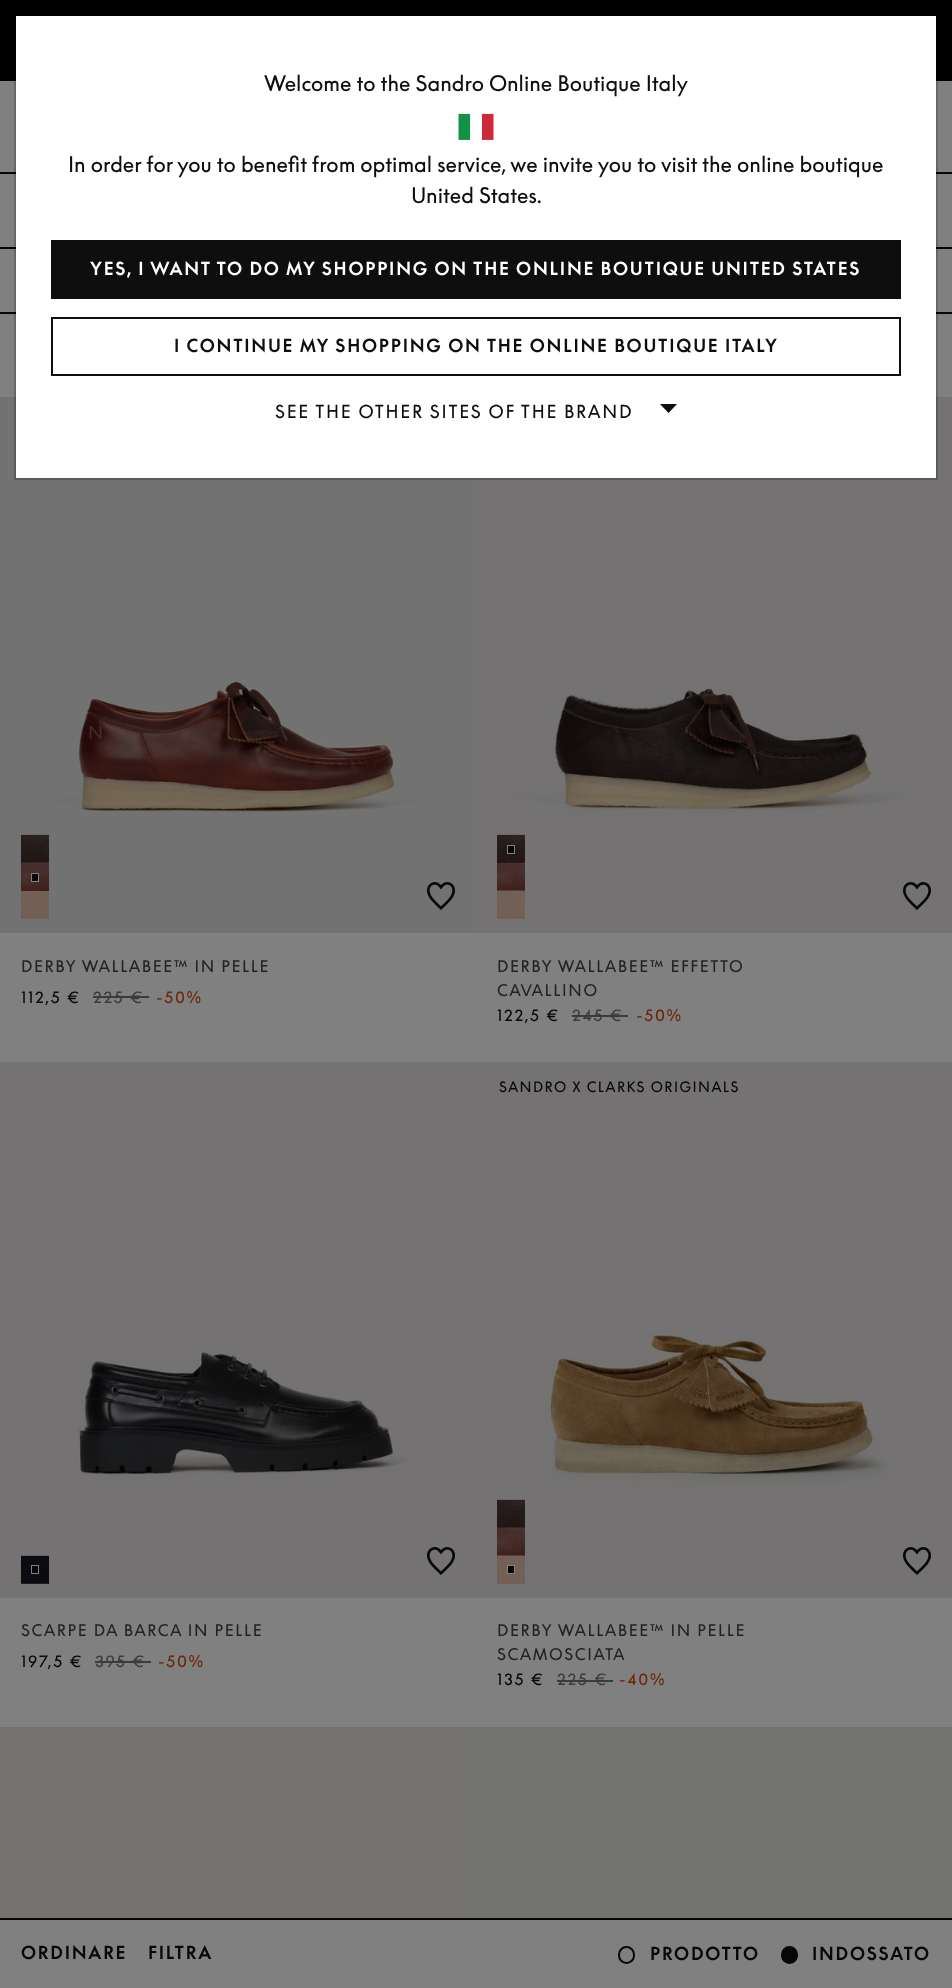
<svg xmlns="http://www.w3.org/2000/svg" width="952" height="1988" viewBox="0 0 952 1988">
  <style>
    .t1 { font: 21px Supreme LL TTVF; fill: #0e0e0e; }
    .t2 { font: bold 17.5px 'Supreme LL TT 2'; letter-spacing: 1.75px; fill: #fff; }
    .t3 { font: bold 17.5px 'Supreme LL TT 2'; letter-spacing: 1.75px; fill: #0e0e0e; }
    .t4 { font: 17.5px Supreme LL TTVF; letter-spacing: 1.75px; fill: #0e0e0e; }
    .t5 { font: 17.5px Supreme LL TTVF; letter-spacing: 1.75px; fill: #422c29; }
    .t6 { font: 15.75px Supreme LL TTVF; letter-spacing: 1.6px; fill: #222; }
    .t7 { font: 15.75px Supreme LL TTVF; letter-spacing: 1.6px; fill: #070707; }
    .t8 { font: 15.75px Supreme LL TTVF; letter-spacing: 1.6px; fill: #3b3b3b; }
    .t9 { font: 15.75px Supreme LL TTVF; letter-spacing: 1.6px; fill: #6d2508; }
    .t10 { font: 14px Supreme LL TTVF; letter-spacing: 1.4px; fill: #070707; }
    .t11 { font: bold 17.5px 'Supreme LL TT 2'; letter-spacing: 1.75px; fill: #070707; }
    .t12 { font: bold 17.5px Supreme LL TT; letter-spacing: 1.75px; fill: #070707; }
  </style>
  <rect width="100%" height="100%" fill="#808080"/>
  <rect x="0" y="0" width="952" height="81" fill="#000"/>
  <rect x="0" y="172" width="952" height="2" fill="#070707"/>
  <rect x="0" y="247" width="952" height="2" fill="#070707"/>
  <rect x="0" y="312" width="952" height="2" fill="#070707"/>
  <image x="0" y="397" width="476" height="536" href="images/2.png"/>
  <image x="476" y="397" width="476" height="536" href="images/10.png"/>
  <rect x="16" y="16" width="920" height="462" fill="#fff"/>
  <rect x="15" y="15" width="922" height="464" fill="none" stroke="#00000033" stroke-width="2"/>
  <text x="264" y="91" class="t1">Welcome to the Sandro Online Boutique Italy</text>
  <image x="458" y="113" width="36" height="27" href="images/1.png"/>
  <text x="68" y="172" class="t1">In order for you to benefit from optimal service, we invite you to visit the online boutique</text>
  <text x="411" y="203" class="t1">United States.</text>
  <rect x="51" y="240" width="850" height="59" fill="#0e0e0e"/>
  <text x="90" y="275" class="t2">YES, I WANT TO DO MY SHOPPING ON THE ONLINE BOUTIQUE UNITED STATES</text>
  <rect x="52" y="318" width="848" height="57" fill="none" stroke="#0e0e0e" stroke-width="2"/>
  <text x="174" y="352" class="t3">I CONTINUE MY SHOPPING ON THE ONLINE BOUTIQUE ITALY</text>
  <text x="275" y="418" class="t4">SEE THE OTHER SITES OF THE BRAND</text>
  <path d="M660 404H677L668.5 413Z" fill="#0e0e0e"/>
  <text x="88" y="739" class="t5">N</text>
  <image x="21" y="834" width="28" height="29" href="images/3.png"/>
  <image x="21" y="834" width="28" height="29" href="images/4.png"/>
  <image x="21" y="890" width="28" height="29" href="images/7.png"/>
  <image x="21" y="890" width="28" height="29" href="images/8.png"/>
  <image x="21" y="862" width="28" height="29" href="images/5.png"/>
  <image x="21" y="862" width="28" height="29" href="images/6.png"/>
  <rect x="31.5" y="873.5" width="7" height="8" fill="#070707" stroke="#808080"/>
  <image x="427" y="882" width="28" height="28" href="images/9.png"/>
  <text x="21" y="972" class="t6">DERBY WALLABEE™ IN PELLE</text>
  <text x="21" y="1003" class="t7">112,5 €</text>
  <text x="93" y="1003" class="t8">225 €</text>
  <rect x="93" y="996" width="56" height="2" fill="#3b3b3b"/>
  <text x="156" y="1003" class="t9">-50%</text>
  <image x="497" y="862" width="28" height="29" href="images/13.png"/>
  <image x="497" y="862" width="28" height="29" href="images/14.png"/>
  <image x="497" y="834" width="28" height="29" href="images/11.png"/>
  <image x="497" y="834" width="28" height="29" href="images/12.png"/>
  <rect x="507.5" y="845.5" width="7" height="8" fill="#070707" stroke="#808080"/>
  <image x="497" y="890" width="28" height="29" href="images/15.png"/>
  <image x="497" y="890" width="28" height="29" href="images/16.png"/>
  <image x="903" y="882" width="28" height="28" href="images/17.png"/>
  <text x="497" y="972" class="t6">DERBY WALLABEE™ EFFETTO</text>
  <text x="497" y="996" class="t6">CAVALLINO</text>
  <text x="497" y="1021" class="t7">122,5 €</text>
  <text x="572" y="1021" class="t8">245 €</text>
  <rect x="572" y="1015" width="56" height="2" fill="#3b3b3b"/>
  <text x="636" y="1021" class="t9">-50%</text>
  <image x="0" y="1062" width="476" height="536" href="images/18.png"/>
  <image x="21" y="1555" width="28" height="29" href="images/19.png"/>
  <image x="21" y="1555" width="28" height="29" href="images/20.png"/>
  <rect x="31.5" y="1565.5" width="7" height="8" fill="#070707" stroke="#808080"/>
  <image x="427" y="1547" width="28" height="28" href="images/17.png"/>
  <text x="21" y="1636" class="t6">SCARPE DA BARCA IN PELLE</text>
  <text x="21" y="1667" class="t7">197,5 €</text>
  <text x="95" y="1667" class="t8">395 €</text>
  <rect x="95" y="1661" width="56" height="2" fill="#3b3b3b"/>
  <text x="158" y="1667" class="t9">-50%</text>
  <image x="476" y="1062" width="476" height="536" href="images/21.png"/>
  <text x="499" y="1092" class="t10">SANDRO X CLARKS ORIGINALS</text>
  <image x="497" y="1499" width="28" height="29" href="images/22.png"/>
  <image x="497" y="1499" width="28" height="29" href="images/23.png"/>
  <image x="497" y="1527" width="28" height="29" href="images/24.png"/>
  <image x="497" y="1527" width="28" height="29" href="images/25.png"/>
  <image x="497" y="1555" width="28" height="29" href="images/15.png"/>
  <image x="497" y="1555" width="28" height="29" href="images/16.png"/>
  <rect x="507.5" y="1565.5" width="7" height="8" fill="#070707" stroke="#808080"/>
  <image x="903" y="1547" width="28" height="28" href="images/17.png"/>
  <text x="497" y="1636" class="t6">DERBY WALLABEE™ IN PELLE</text>
  <text x="497" y="1660" class="t6">SCAMOSCIATA</text>
  <text x="497" y="1685" class="t7">135 €</text>
  <text x="557" y="1685" class="t8">225 €</text>
  <rect x="557" y="1680" width="56" height="2" fill="#3b3b3b"/>
  <text x="619" y="1685" class="t9">-40%</text>
  <rect x="0" y="1727" width="476" height="191" fill="#747372"/>
  <rect x="476" y="1727" width="476" height="191" fill="#737372"/>
  <rect x="0" y="1918" width="952" height="2" fill="#070707"/>
  <text x="21" y="1959" class="t11">ORDINARE</text>
  <text x="148" y="1959" class="t11">FILTRA</text>
  <rect x="619" y="1947" width="15" height="16" rx="7.5" fill="none" stroke="#070707" stroke-width="2"/>
  <text x="650" y="1960" class="t12">PRODOTTO</text>
  <rect x="782" y="1947" width="15" height="16" rx="7.5" fill="#070707" stroke="#070707" stroke-width="2"/>
  <text x="812" y="1960" class="t12">INDOSSATO</text>
</svg>
